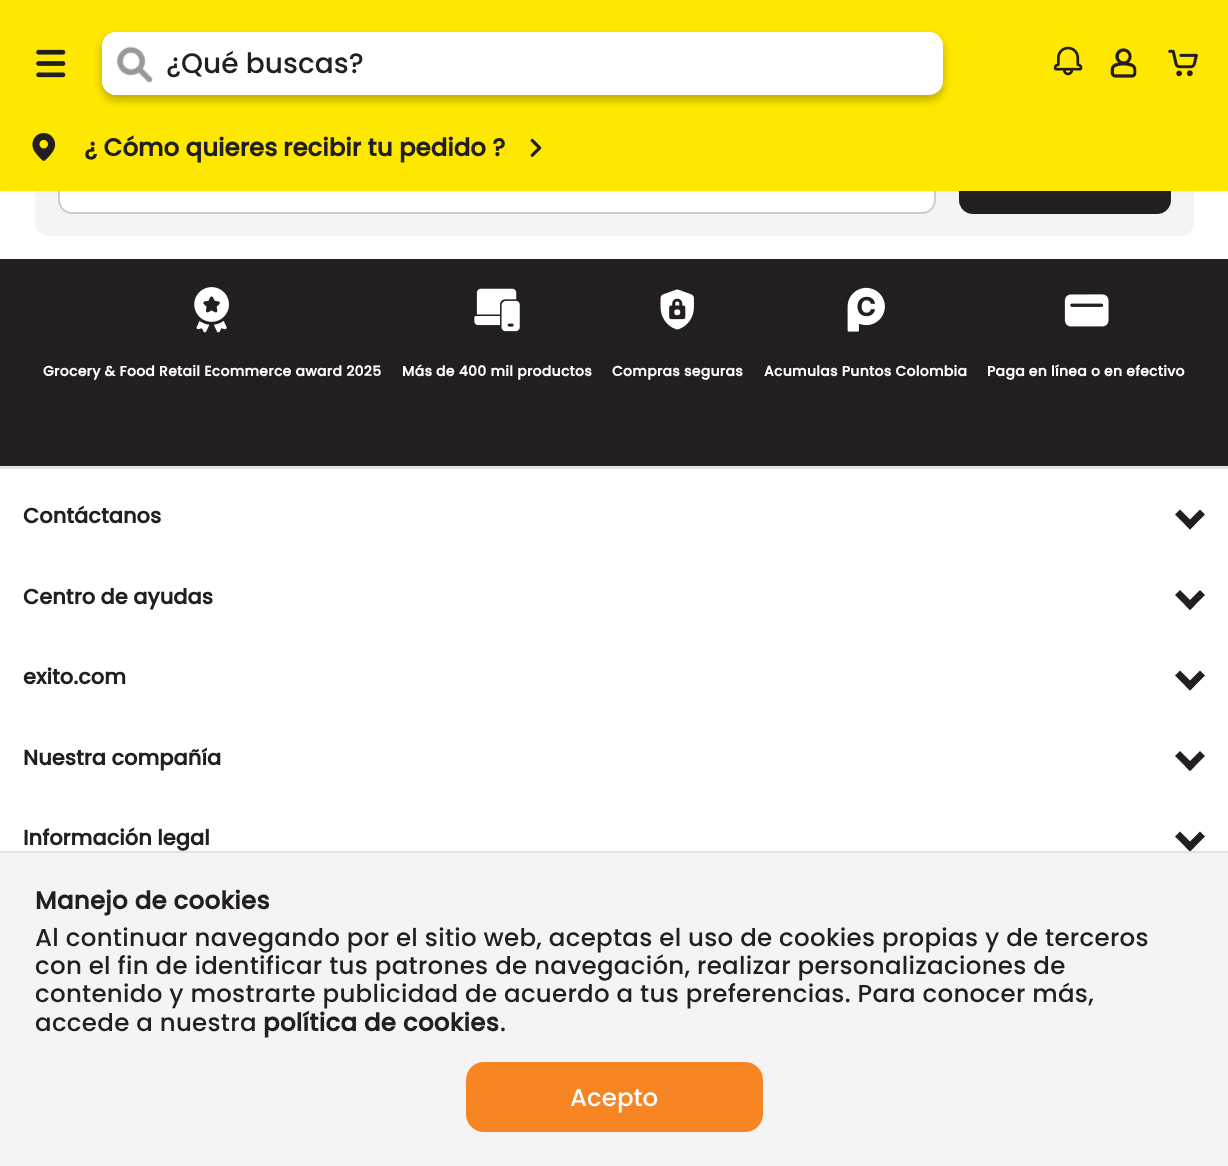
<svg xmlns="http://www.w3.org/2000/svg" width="1228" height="1166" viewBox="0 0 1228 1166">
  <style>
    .t1 { font: 500 28px Poppins; fill: #231f20; }
    .t2 { font: bold 24.5px Poppins; fill: #231f20; }
    .t3 { font: bold 14px Poppins; letter-spacing: 0.28px; fill: #fff; }
    .t4 { font: bold 21px Poppins; fill: #231f20; }
    .t5 { font: bold 24.5px Poppins; letter-spacing: 0.28px; fill: #231f20; }
    .t6 { font: 500 24.5px Poppins; letter-spacing: 0.28px; fill: #231f20; }
    .t7 { font: 500 24.5px Poppins; fill: #fff; }
  </style>
  <defs>
    <clipPath id="clip1"><path d="M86 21H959V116H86ZM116 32H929C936.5 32 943 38.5 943 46V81C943 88.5 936.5 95 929 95H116C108.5 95 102 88.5 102 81V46C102 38.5 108.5 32 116 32Z" clip-rule="evenodd"/></clipPath>
  </defs>
  <rect width="100%" height="100%" fill="#fff"/>
  <rect x="35" y="-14" width="1159" height="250" rx="14" fill="#f4f4f4"/>
  <rect x="59" y="134" width="876" height="79" rx="13" fill="#fff" stroke="#ccc" stroke-width="2"/>
  <rect x="959" y="133" width="212" height="81" rx="14" fill="#231f20"/>
  <rect x="0" y="0" width="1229" height="191" fill="#0000000d" filter="blur(2.5px)"/>
  <rect x="0" y="0" width="1228" height="191" fill="#ffe800"/>
  <image x="36" y="49" width="30" height="29" href="images/1.png"/>
  <rect x="102" y="32" width="841" height="63" rx="14" fill="#fff"/>
  <g clip-path="url(#clip1)">
    <rect x="102" y="37" width="841" height="63" rx="14" fill="#00000042" filter="blur(5px)"/>
  </g>
  <path d="M116 32H166V95H116C108.5 95 102 88.5 102 81V46C102 38.5 108.5 32 116 32Z" fill="#fff"/>
  <image x="116" y="46" width="37" height="37" href="images/2.png"/>
  <text x="166" y="73" class="t1">¿Qué buscas?</text>
  <image x="1053" y="46" width="30" height="30" href="images/3.png"/>
  <image x="1110" y="48" width="27" height="30" href="images/4.png"/>
  <image x="1168" y="49" width="30" height="28" href="images/5.png"/>
  <image x="32" y="133" width="24" height="28" href="images/6.png"/>
  <text x="84" y="156" class="t2">¿ Cómo quieres</text>
  <text x="283" y="156" class="t2">recibir tu pedido ?</text>
  <image x="530" y="138" width="12" height="19" href="images/7.png"/>
  <rect x="0" y="259" width="1228" height="207" fill="#231f20"/>
  <image x="194" y="287" width="35" height="46" href="images/8.png"/>
  <text x="43" y="376" class="t3">Grocery &amp; Food Retail Ecommerce award 2025</text>
  <image x="474" y="288" width="46" height="44" href="images/9.png"/>
  <text x="402" y="376" class="t3">Más de 400 mil productos</text>
  <image x="660" y="289" width="34" height="41" href="images/10.png"/>
  <text x="612" y="376" class="t3">Compras seguras</text>
  <image x="847" y="287" width="38" height="45" href="images/11.png"/>
  <text x="764" y="376" class="t3">Acumulas Puntos Colombia</text>
  <image x="1064" y="294" width="45" height="33" href="images/12.png"/>
  <text x="987" y="376" class="t3">Paga en línea o en efectivo</text>
  <rect x="0" y="466" width="1228" height="3" fill="#e3e3e3"/>
  <text x="23" y="523" class="t4">Contáctanos</text>
  <path d="M1190 529.5L1175 514.5L1180 509.5L1195 524.5Z" fill="#231f20"/>
  <path d="M1190 529.5L1185 524.5L1200 509.5L1205 514.5Z" fill="#231f20"/>
  <text x="23" y="604" class="t4">Centro de ayudas</text>
  <path d="M1190 610L1175 595L1180 590L1195 605Z" fill="#231f20"/>
  <path d="M1190 610L1185 605L1200 590L1205 595Z" fill="#231f20"/>
  <text x="23" y="684" class="t4">exito.com</text>
  <path d="M1190 690.5L1175 675.5L1180 670.5L1195 685.5Z" fill="#231f20"/>
  <path d="M1190 690.5L1185 685.5L1200 670.5L1205 675.5Z" fill="#231f20"/>
  <text x="23" y="765" class="t4">Nuestra compañía</text>
  <path d="M1190 771L1175 756L1180 751L1195 766Z" fill="#231f20"/>
  <path d="M1190 771L1185 766L1200 751L1205 756Z" fill="#231f20"/>
  <text x="23" y="845" class="t4">Información legal</text>
  <path d="M1190 851.5L1175 836.5L1180 831.5L1195 846.5Z" fill="#231f20"/>
  <path d="M1190 851.5L1185 846.5L1200 831.5L1205 836.5Z" fill="#231f20"/>
  <rect x="0" y="853" width="1228" height="313" fill="#f4f4f4"/>
  <rect x="0" y="851" width="1228" height="2" fill="#e3e3e3"/>
  <text x="35" y="909" class="t5">Manejo de cookies</text>
  <text x="35" y="946" class="t6">Al continuar navegando por el sitio web, aceptas el uso de cookies propias y de terceros</text>
  <text x="35" y="974" class="t6">con el fin de identificar tus patrones de navegación, realizar personalizaciones de</text>
  <text x="35" y="1002" class="t6">contenido y mostrarte publicidad de acuerdo a tus preferencias. Para conocer más,</text>
  <text x="35" y="1031" class="t6">accede a nuestra</text>
  <text x="263" y="1031" class="t5">política de cookies</text>
  <text x="500" y="1031" class="t6">.</text>
  <rect x="466" y="1062" width="297" height="70" rx="18" fill="#f78524"/>
  <text x="570" y="1106" class="t7">Acepto</text>
</svg>
